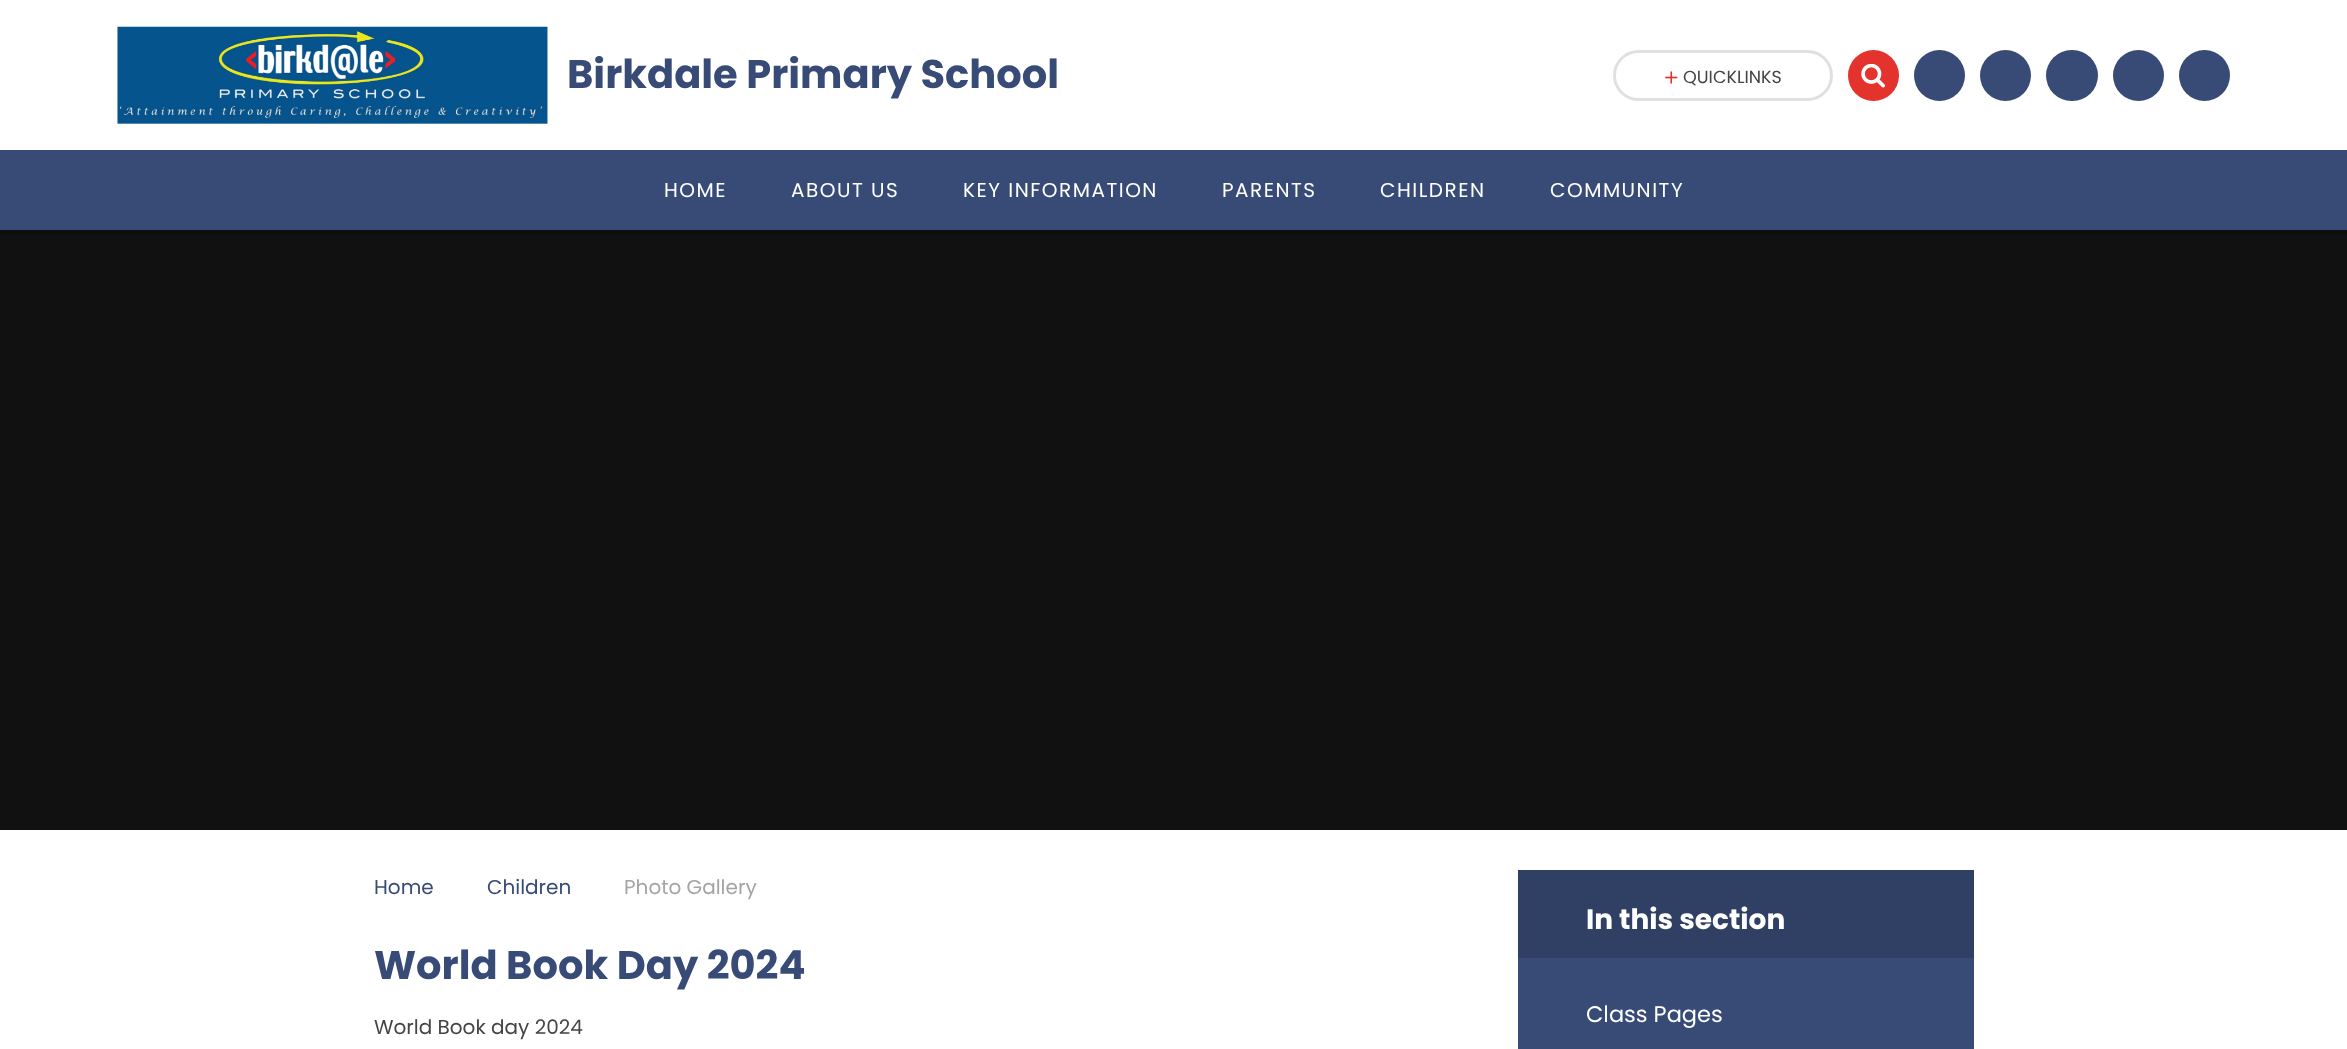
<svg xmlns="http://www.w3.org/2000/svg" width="2347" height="1049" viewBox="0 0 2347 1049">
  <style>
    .t1 { font: bold 40px Poppins; fill: #384b76; }
    .t2 { font: 17.5px Poppins; fill: #444; }
    .t3 { font: 20px Poppins; letter-spacing: 1.5px; fill: #fff; }
    .t4 { font: 20px Poppins; fill: #384b76; }
    .t5 { font: 20px Poppins; fill: #a4a4a4; }
    .t6 { font: 20px Poppins; fill: #444; }
    .t7 { font: bold 28px Poppins; fill: #fff; }
    .t8 { font: 22.5px Poppins; fill: #fff; }
  </style>
  <rect width="100%" height="100%" fill="#111"/>
  <rect x="0" y="0" width="2347" height="150" fill="#fff"/>
  <image x="117" y="26" width="431" height="98" href="images/1.png"/>
  <text x="567" y="88" class="t1">Birkdale Primary School</text>
  <rect x="0" y="230" width="2347" height="5" fill="#0e0e0e"/>
  <rect x="0" y="150" width="2347" height="80" fill="#384b76"/>
  <rect x="1614.5" y="51.5" width="217" height="48" rx="24" fill="none" stroke="#e0e0e0" stroke-width="3"/>
  <image x="1665" y="71" width="13" height="13" href="images/2.png"/>
  <text x="1683" y="83" class="t2">QUICKLINKS</text>
  <circle cx="1873.5" cy="75.5" r="25.5" fill="#e4332d"/>
  <image x="1861" y="64" width="24" height="24" href="images/3.png"/>
  <circle cx="1939.5" cy="75.5" r="25.5" fill="#384b76"/>
  <circle cx="2005.5" cy="75.5" r="25.5" fill="#384b76"/>
  <rect x="2046" y="50" width="52" height="51" rx="25.5" fill="#384b76"/>
  <circle cx="2138.5" cy="75.5" r="25.5" fill="#384b76"/>
  <circle cx="2204.5" cy="75.5" r="25.5" fill="#384b76"/>
  <text x="664" y="197" class="t3">HOME</text>
  <text x="791" y="197" class="t3">ABOUT US</text>
  <text x="963" y="197" class="t3">KEY INFORMATION</text>
  <text x="1222" y="197" class="t3">PARENTS</text>
  <text x="1380" y="197" class="t3">CHILDREN</text>
  <text x="1550" y="197" class="t3">COMMUNITY</text>
  <rect x="0" y="830" width="2347" height="219" fill="#fff"/>
  <text x="374" y="894" class="t4">Home</text>
  <text x="487" y="894" class="t4">Children</text>
  <text x="624" y="894" class="t5">Photo Gallery</text>
  <text x="374" y="979" class="t1">World Book Day 2024</text>
  <text x="374" y="1034" class="t6">World Book day 2024</text>
  <rect x="1518" y="958" width="456" height="91" fill="#384b76"/>
  <rect x="1518" y="870" width="456" height="88" fill="#304064"/>
  <text x="1586" y="929" class="t7">In this section</text>
  <text x="1586" y="1022" class="t8">Class Pages</text>
</svg>
